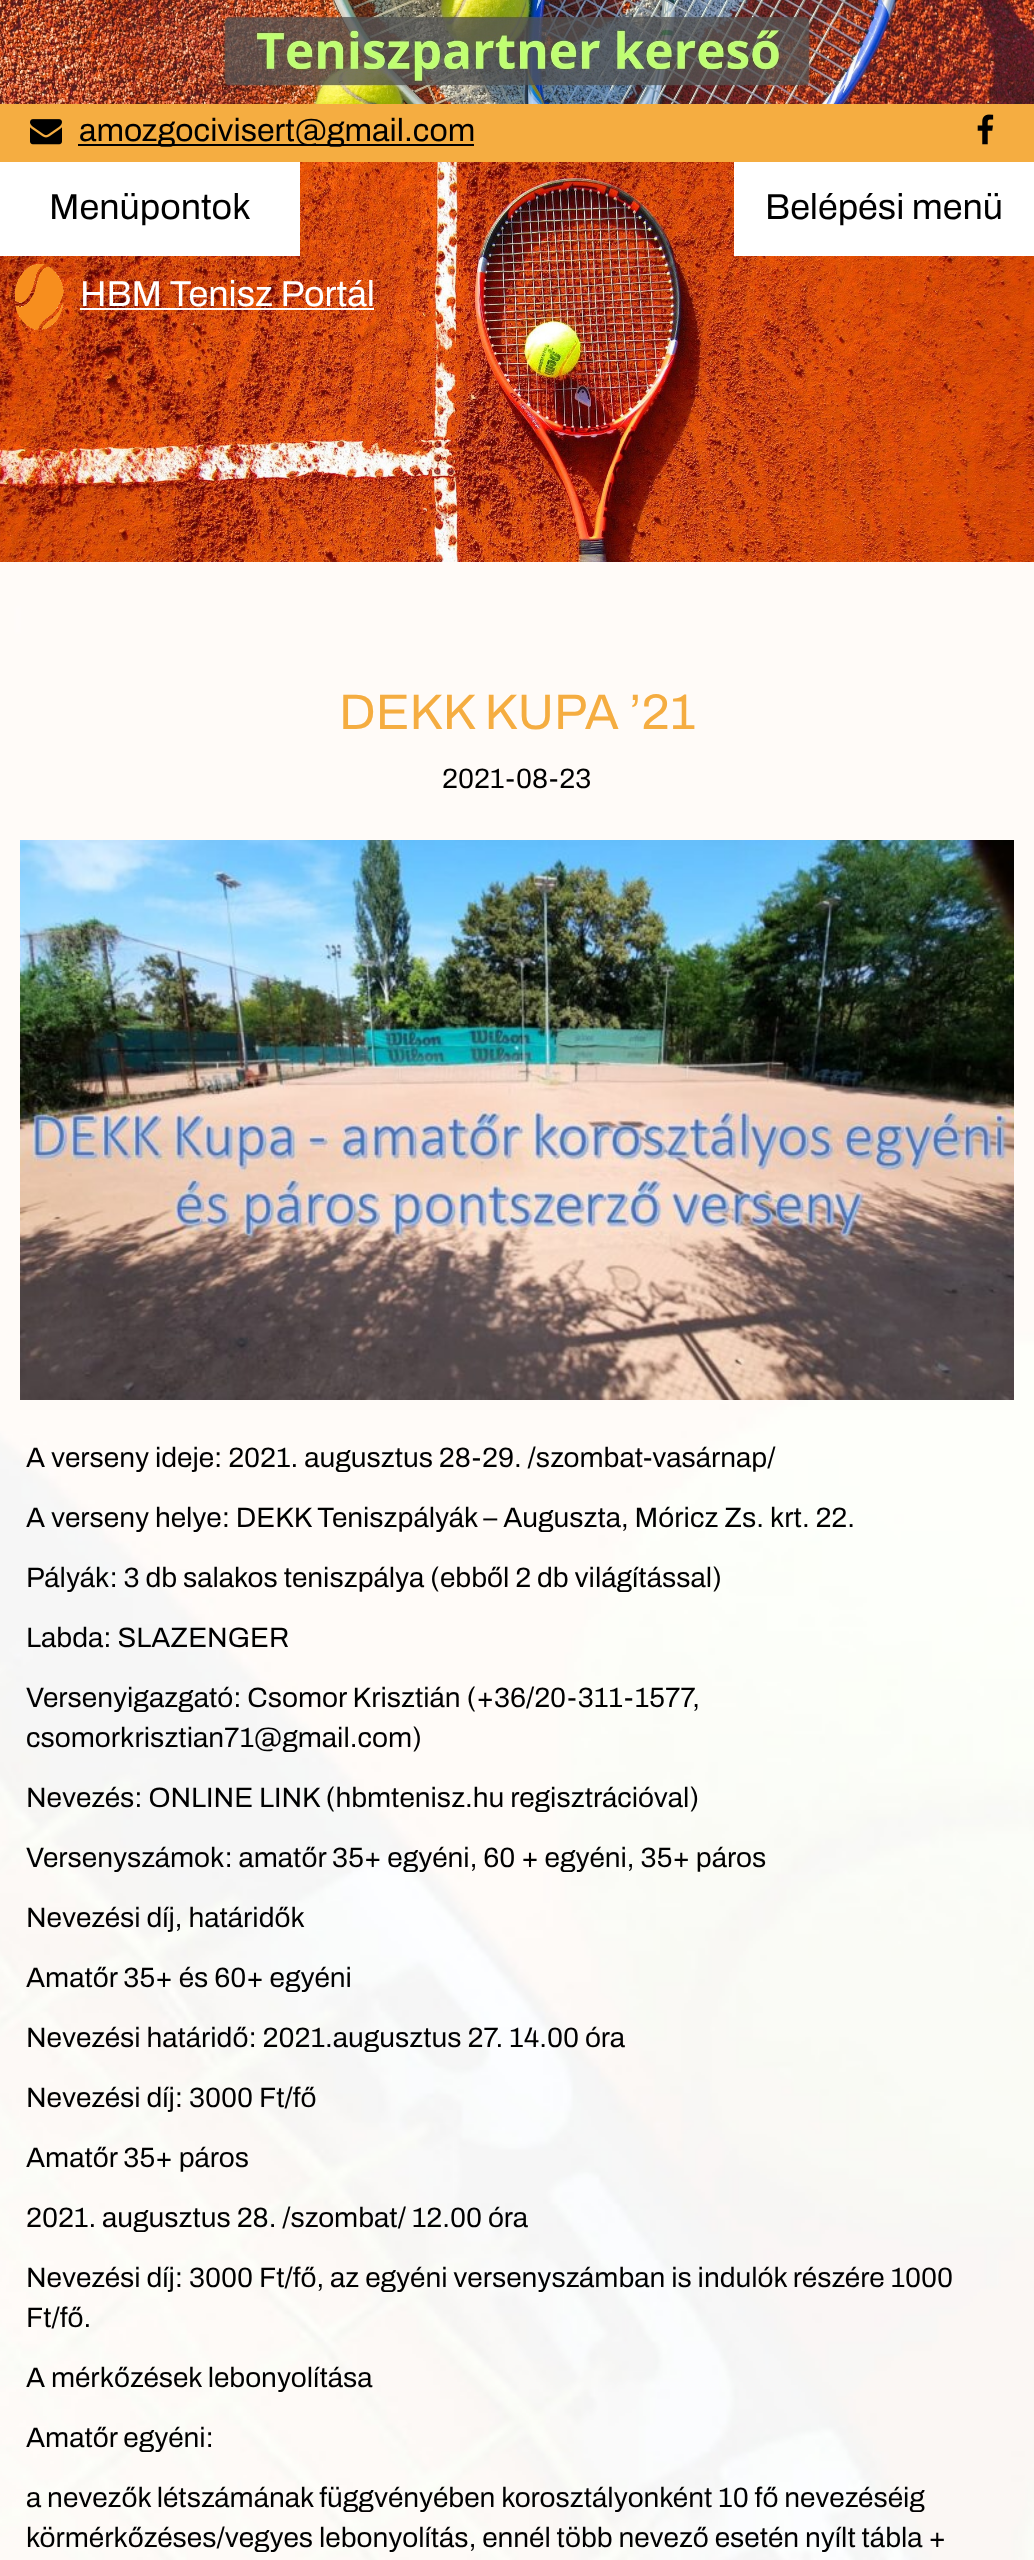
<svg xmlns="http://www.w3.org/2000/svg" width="1034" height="2560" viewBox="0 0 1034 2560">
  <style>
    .t1 { font: 600 32px Archivo; fill: #000; }
    .t2 { font: 600 36px Archivo; fill: #000; }
    .t3 { font: 600 36px Archivo; fill: #fff; }
    .t4 { font: 600 50px Archivo; fill: #f5ad41; }
    .t5 { font: 600 28px Archivo; fill: #000; }
  </style>
  <rect width="100%" height="100%" fill="#fff"/>
  <image x="0" y="562" width="1034" height="1998" href="images/1.png"/>
  <image x="0" y="0" width="1034" height="104" href="images/2.png"/>
  <rect x="0" y="104" width="1034" height="58" fill="#f5ad41"/>
  <image x="30" y="119" width="32" height="26" href="images/3.png"/>
  <rect x="78" y="144" width="396" height="2" fill="#000"/>
  <text x="79" y="141" class="t1">amozgocivisert@gmail.com</text>
  <image x="977" y="114" width="17" height="31" href="images/4.png"/>
  <image x="0" y="162" width="1034" height="400" href="images/5.png"/>
  <rect x="0" y="162" width="300" height="94" fill="#fff"/>
  <text x="49" y="219" class="t2">Menüpontok</text>
  <rect x="734" y="162" width="300" height="94" fill="#fff"/>
  <text x="765" y="219" class="t2">Belépési menü</text>
  <image x="15" y="264" width="49" height="66" href="images/6.png"/>
  <text x="80" y="306" class="t3">HBM Tenisz Portál</text>
  <rect x="80" y="308" width="294" height="2" fill="#fff"/>
  <text x="339" y="729" class="t4">DEKK KUPA ’21</text>
  <text x="442" y="788" class="t5">2021-08-23</text>
  <image x="20" y="840" width="994" height="560" href="images/7.png"/>
  <text x="26" y="1467" class="t5">A verseny ideje: 2021. augusztus 28-29. /szombat-vasárnap/</text>
  <text x="26" y="1527" class="t5">A verseny helye: DEKK Teniszpályák – Auguszta, Móricz Zs. krt. 22.</text>
  <text x="26" y="1587" class="t5">Pályák: 3 db salakos teniszpálya (ebből 2 db világítással)</text>
  <text x="26" y="1647" class="t5">Labda: SLAZENGER</text>
  <text x="26" y="1707" class="t5">Versenyigazgató: Csomor Krisztián (+36/20-311-1577,</text>
  <text x="26" y="1747" class="t5">csomorkrisztian71@gmail.com)</text>
  <text x="26" y="1807" class="t5">Nevezés: ONLINE LINK (hbmtenisz.hu regisztrációval)</text>
  <text x="26" y="1867" class="t5">Versenyszámok: amatőr 35+ egyéni, 60 + egyéni, 35+ páros</text>
  <text x="26" y="1927" class="t5">Nevezési díj, határidők</text>
  <text x="26" y="1987" class="t5">Amatőr 35+ és 60+ egyéni</text>
  <text x="26" y="2047" class="t5">Nevezési határidő: 2021.augusztus 27. 14.00 óra</text>
  <text x="26" y="2107" class="t5">Nevezési díj: 3000 Ft/fő</text>
  <text x="26" y="2167" class="t5">Amatőr 35+ páros</text>
  <text x="26" y="2227" class="t5">2021. augusztus 28. /szombat/ 12.00 óra</text>
  <text x="26" y="2287" class="t5">Nevezési díj: 3000 Ft/fő, az egyéni versenyszámban is indulók részére 1000</text>
  <text x="26" y="2327" class="t5">Ft/fő.</text>
  <text x="26" y="2387" class="t5">A mérkőzések lebonyolítása</text>
  <text x="26" y="2447" class="t5">Amatőr egyéni:</text>
  <text x="26" y="2507" class="t5">a nevezők létszámának függvényében korosztályonként 10 fő nevezéséig</text>
  <text x="26" y="2547" class="t5">körmérkőzéses/vegyes lebonyolítás, ennél több nevező esetén nyílt tábla +</text>
</svg>
